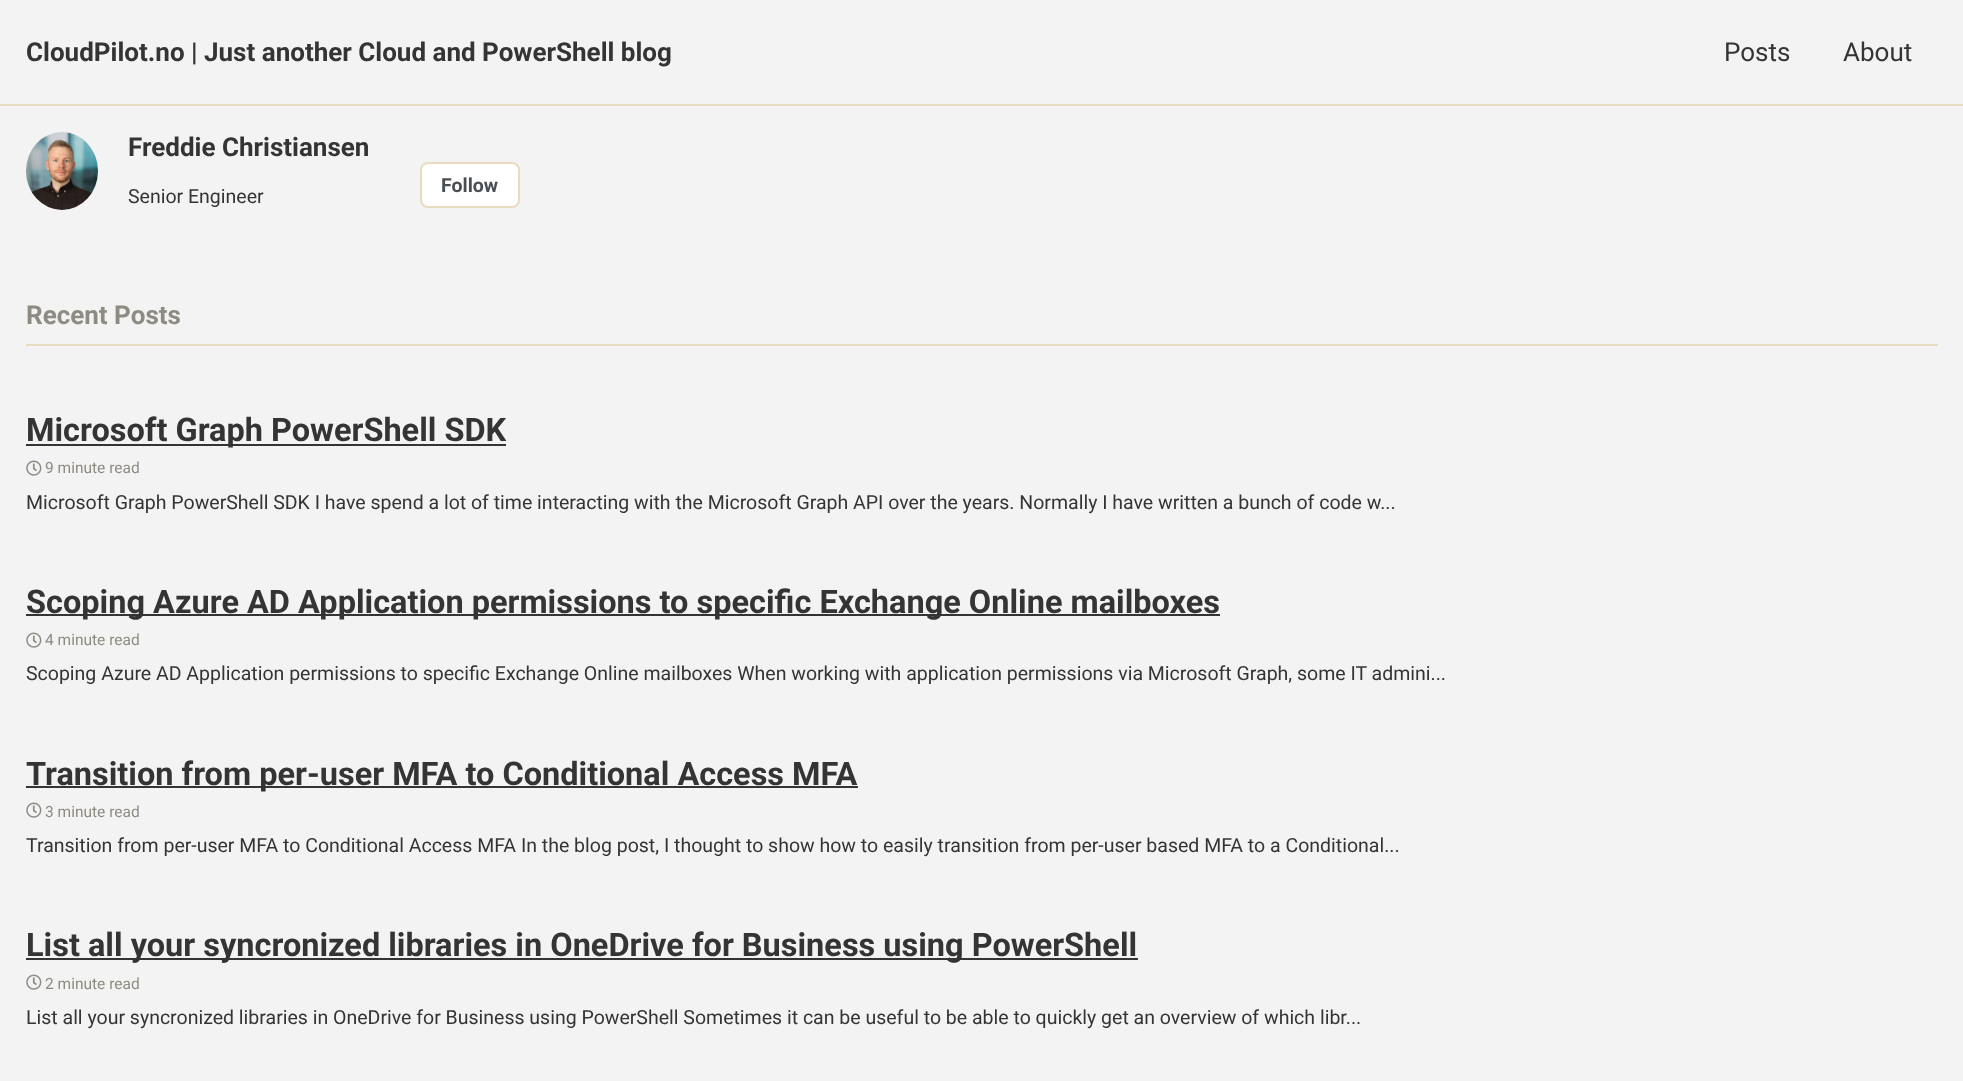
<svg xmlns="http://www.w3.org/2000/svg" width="1963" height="1081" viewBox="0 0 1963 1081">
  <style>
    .t1 { font: bold 26px Roboto; fill: #343434; }
    .t2 { font: 26px Roboto; fill: #343434; }
    .t3 { font: 19.5px Roboto; fill: #343434; }
    .t4 { font: bold 19.5px Roboto; fill: #494e52; }
    .t5 { font: bold 26px Roboto; fill: #8e8b82; }
    .t6 { font: bold 32.5px Roboto; fill: #343434; }
    .t7 { font: 15.5px Roboto; fill: #8e8b82; }
  </style>
  <rect width="100%" height="100%" fill="#f3f3f3"/>
  <rect x="0" y="104" width="1963" height="2" fill="#e9dcbe"/>
  <text x="26" y="61" class="t1">CloudPilot.no | Just another Cloud and PowerShell blog</text>
  <text x="1724" y="61" class="t2">Posts</text>
  <text x="1843" y="61" class="t2">About</text>
  <image x="26" y="132" width="72" height="78" href="images/1.png"/>
  <text x="128" y="156" class="t1">Freddie Christiansen</text>
  <text x="128" y="203" class="t3">Senior Engineer</text>
  <rect x="421" y="163" width="98" height="44" rx="7" fill="#fff" stroke="#e9dcbe" stroke-width="2"/>
  <text x="441" y="192" class="t4">Follow</text>
  <rect x="26" y="344" width="1912" height="2" fill="#e9dcbe"/>
  <text x="26" y="324" class="t5">Recent Posts</text>
  <rect x="26" y="444" width="480" height="2" fill="#343434"/>
  <text x="26" y="441" class="t6">Microsoft Graph PowerShell SDK</text>
  <image x="26" y="460" width="16" height="16" href="images/2.png"/>
  <text x="45" y="473" class="t7">9 minute read</text>
  <text x="26" y="509" class="t3">Microsoft Graph PowerShell SDK I have spend a lot of time interacting with the Microsoft Graph API over the years. Normally I have written a bunch of code w...</text>
  <rect x="26" y="614" width="1194" height="2" fill="#343434"/>
  <text x="26" y="613" class="t6">Scoping Azure AD Application permissions to specific Exchange Online mailboxes</text>
  <image x="26" y="632" width="16" height="16" href="images/2.png"/>
  <text x="45" y="645" class="t7">4 minute read</text>
  <text x="26" y="680" class="t3">Scoping Azure AD Application permissions to specific Exchange Online mailboxes When working with application permissions via Microsoft Graph, some IT admini...</text>
  <rect x="26" y="786" width="832" height="2" fill="#343434"/>
  <text x="26" y="785" class="t6">Transition from per-user MFA to Conditional Access MFA</text>
  <image x="26" y="802" width="16" height="16" href="images/2.png"/>
  <text x="45" y="817" class="t7">3 minute read</text>
  <text x="26" y="852" class="t3">Transition from per-user MFA to Conditional Access MFA In the blog post, I thought to show how to easily transition from per-user based MFA to a Conditional...</text>
  <rect x="26" y="958" width="1112" height="2" fill="#343434"/>
  <text x="26" y="956" class="t6">List all your syncronized libraries in OneDrive for Business using PowerShell</text>
  <image x="26" y="974" width="16" height="16" href="images/2.png"/>
  <text x="45" y="989" class="t7">2 minute read</text>
  <text x="26" y="1024" class="t3">List all your syncronized libraries in OneDrive for Business using PowerShell Sometimes it can be useful to be able to quickly get an overview of which libr...</text>
</svg>
